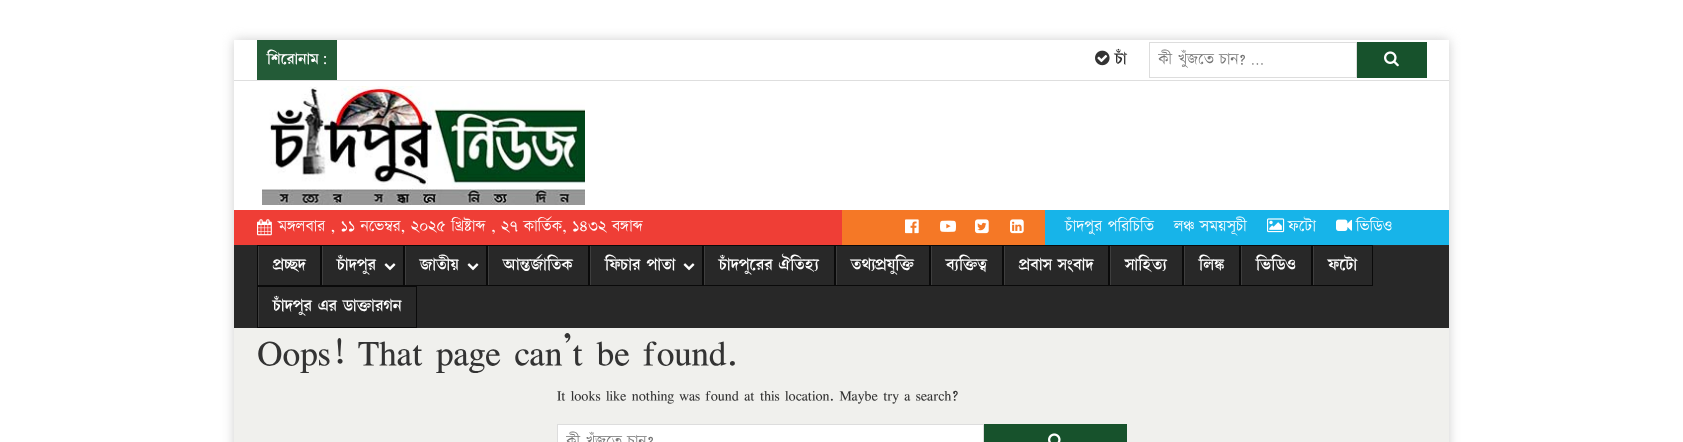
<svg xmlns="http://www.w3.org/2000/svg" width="1683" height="442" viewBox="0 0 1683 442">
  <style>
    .t1 { font: bold 16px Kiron; fill: #fff; }
    .t2 { font: bold 17px Kiron; fill: #333; }
    .t3 { font: 16px Kiron; fill: #757575; }
    .t4 { font: 16px Kiron; fill: #fff; }
    .t5 { font: bold 17px Kiron; fill: #fff; }
    .t6 { font: 40px Kiron; fill: #333; }
    .t7 { font: 16px Kiron; fill: #333; }
  </style>
  <defs>
    <clipPath id="clip1"><rect x="1158" y="48" width="175" height="23"/></clipPath>
    <clipPath id="clip2"><rect x="566" y="430" width="394" height="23"/></clipPath>
  </defs>
  <rect width="100%" height="100%" fill="#fff"/>
  <rect x="234" y="40" width="1215" height="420" fill="#cecece" filter="blur(6px)"/>
  <rect x="234" y="328" width="1215" height="114" fill="#f0f0ed"/>
  <rect x="234" y="40" width="1215" height="40" fill="#fff"/>
  <rect x="234" y="80" width="1215" height="1" fill="#dedede"/>
  <rect x="257" y="40" width="80" height="40" fill="#235b37"/>
  <text x="267" y="64" class="t1">শিরোনাম:</text>
  <image x="1095" y="50" width="15" height="16" href="images/1.png"/>
  <text x="1115" y="64" class="t2">চাঁ</text>
  <rect x="1149.5" y="42.5" width="207" height="35" fill="none" stroke="#ddd"/>
  <g clip-path="url(#clip1)">
    <text x="1158" y="64" class="t3">কী খুঁজতে চান? …</text>
  </g>
  <rect x="1357" y="42" width="70" height="36" fill="#17522c"/>
  <image x="1384" y="51" width="15" height="16" href="images/2.png"/>
  <rect x="234" y="81" width="1215" height="129" fill="#fff"/>
  <image x="262" y="86" width="323" height="119" href="images/3.png"/>
  <rect x="234" y="210" width="608" height="35" fill="#ef3e36"/>
  <image x="257" y="219" width="15" height="17" href="images/4.png"/>
  <text x="278" y="231" class="t4">মঙ্গলবার , ১১ নভেম্বর, ২০২৫ খ্রিষ্টাব্দ , ২৭ কার্তিক, ১৪৩২ বঙ্গাব্দ</text>
  <rect x="842" y="210" width="203" height="35" fill="#f57826"/>
  <image x="905" y="219" width="14" height="15" href="images/5.png"/>
  <image x="940" y="220" width="16" height="12" href="images/6.png"/>
  <image x="975" y="219" width="14" height="15" href="images/7.png"/>
  <image x="1010" y="219" width="14" height="15" href="images/8.png"/>
  <rect x="1045" y="210" width="404" height="35" fill="#17b4e9"/>
  <text x="1065" y="231" class="t4">চাঁদপুর পরিচিতি</text>
  <text x="1174" y="231" class="t4">লঞ্চ সময়সূচী</text>
  <image x="1267" y="218" width="18" height="15" href="images/9.png"/>
  <text x="1288" y="231" class="t4">ফটো</text>
  <image x="1336" y="219" width="16" height="12" href="images/10.png"/>
  <text x="1356" y="231" class="t4">ভিডিও</text>
  <rect x="234" y="245" width="1215" height="83" fill="#282828"/>
  <rect x="258" y="246" width="1" height="39" fill="#3e3e3e"/>
  <rect x="257.5" y="245.5" width="63" height="40" fill="none" stroke="#0a0a0a"/>
  <text x="273" y="270" class="t5">প্রচ্ছদ</text>
  <rect x="322" y="246" width="1" height="39" fill="#3e3e3e"/>
  <rect x="321.5" y="245.5" width="82" height="40" fill="none" stroke="#0a0a0a"/>
  <text x="337" y="270" class="t5">চাঁদপুর</text>
  <image x="384" y="263" width="12" height="8" href="images/11.png"/>
  <rect x="405" y="246" width="1" height="39" fill="#3e3e3e"/>
  <rect x="404.5" y="245.5" width="82" height="40" fill="none" stroke="#0a0a0a"/>
  <text x="420" y="270" class="t5">জাতীয়</text>
  <image x="467" y="263" width="12" height="8" href="images/11.png"/>
  <rect x="488" y="246" width="1" height="39" fill="#3e3e3e"/>
  <rect x="487.5" y="245.5" width="101" height="40" fill="none" stroke="#0a0a0a"/>
  <text x="503" y="270" class="t5">আন্তর্জাতিক</text>
  <rect x="590" y="246" width="1" height="39" fill="#3e3e3e"/>
  <rect x="589.5" y="245.5" width="113" height="40" fill="none" stroke="#0a0a0a"/>
  <text x="605" y="270" class="t5">ফিচার পাতা</text>
  <image x="683" y="263" width="12" height="8" href="images/11.png"/>
  <rect x="704" y="246" width="1" height="39" fill="#3e3e3e"/>
  <rect x="703.5" y="245.5" width="131" height="40" fill="none" stroke="#0a0a0a"/>
  <text x="719" y="270" class="t5">চাঁদপুরের ঐতিহ্য</text>
  <rect x="836" y="246" width="1" height="39" fill="#3e3e3e"/>
  <rect x="835.5" y="245.5" width="94" height="40" fill="none" stroke="#0a0a0a"/>
  <text x="851" y="270" class="t5">তথ্যপ্রযুক্তি</text>
  <rect x="931" y="246" width="1" height="39" fill="#3e3e3e"/>
  <rect x="930.5" y="245.5" width="72" height="40" fill="none" stroke="#0a0a0a"/>
  <text x="946" y="270" class="t5">ব্যক্তিত্ব</text>
  <rect x="1004" y="246" width="1" height="39" fill="#3e3e3e"/>
  <rect x="1003.5" y="245.5" width="105" height="40" fill="none" stroke="#0a0a0a"/>
  <text x="1019" y="270" class="t5">প্রবাস সংবাদ</text>
  <rect x="1110" y="246" width="1" height="39" fill="#3e3e3e"/>
  <rect x="1109.5" y="245.5" width="73" height="40" fill="none" stroke="#0a0a0a"/>
  <text x="1125" y="270" class="t5">সাহিত্য</text>
  <rect x="1184" y="246" width="1" height="39" fill="#3e3e3e"/>
  <rect x="1183.5" y="245.5" width="56" height="40" fill="none" stroke="#0a0a0a"/>
  <text x="1199" y="270" class="t5">লিঙ্ক</text>
  <rect x="1241" y="246" width="1" height="39" fill="#3e3e3e"/>
  <rect x="1240.5" y="245.5" width="71" height="40" fill="none" stroke="#0a0a0a"/>
  <text x="1256" y="270" class="t5">ভিডিও</text>
  <rect x="1313" y="246" width="1" height="39" fill="#3e3e3e"/>
  <rect x="1312.5" y="245.5" width="60" height="40" fill="none" stroke="#0a0a0a"/>
  <text x="1328" y="270" class="t5">ফটো</text>
  <rect x="258" y="287" width="1" height="40" fill="#3e3e3e"/>
  <rect x="257.5" y="286.5" width="159" height="41" fill="none" stroke="#0a0a0a"/>
  <text x="273" y="311" class="t5">চাঁদপুর এর ডাক্তারগন</text>
  <text x="257" y="364" class="t6">Oops! That page can’t be found.</text>
  <text x="557" y="400" class="t7">It looks like nothing was found at this location. Maybe try a search?</text>
  <rect x="557.5" y="424.5" width="426" height="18" fill="#fff" stroke="#ddd"/>
  <g clip-path="url(#clip2)">
    <text x="566" y="446" class="t3">কী খুঁজতে চান?</text>
  </g>
  <rect x="984" y="424" width="143" height="18" fill="#17522c"/>
  <image x="1048" y="433" width="13" height="9" href="images/12.png"/>
</svg>
